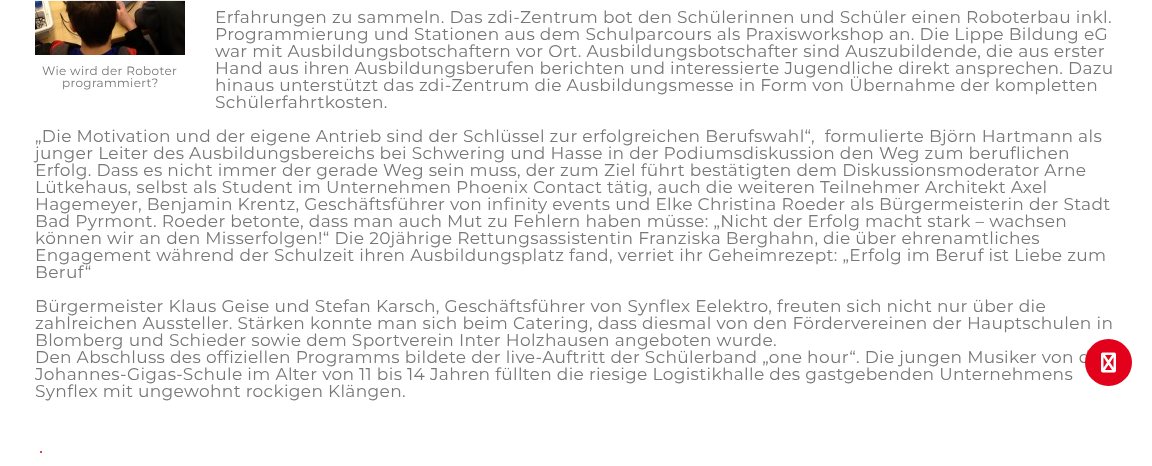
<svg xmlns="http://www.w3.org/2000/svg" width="1152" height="466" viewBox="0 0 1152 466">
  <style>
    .t1 { font: 100 12px Montserrat; letter-spacing: 0.34px; fill: #777; }
    .t2 { font: 100 17px Montserrat; letter-spacing: 0.34px; fill: #777; }
  </style>
  <rect width="100%" height="100%" fill="#fff"/>
  <image x="35" y="0" width="150" height="55" href="images/1.png"/>
  <rect x="35" y="0" width="150" height="1" fill="#ffffffe6"/>
  <text x="42" y="75" class="t1">Wie wird der Roboter</text>
  <text x="62" y="87" class="t1">programmiert?</text>
  <text x="215" y="23" class="t2">Erfahrungen zu sammeln. Das zdi-Zentrum bot den Schülerinnen und Schüler einen Roboterbau inkl.</text>
  <text x="215" y="40" class="t2">Programmierung und Stationen aus dem Schulparcours als Praxisworkshop an. Die Lippe Bildung eG</text>
  <text x="215" y="57" class="t2">war mit Ausbildungsbotschaftern vor Ort. Ausbildungsbotschafter sind Auszubildende, die aus erster</text>
  <text x="215" y="74" class="t2">Hand aus ihren Ausbildungsberufen berichten und interessierte Jugendliche direkt ansprechen. Dazu</text>
  <text x="215" y="91" class="t2">hinaus unterstützt das zdi-Zentrum die Ausbildungsmesse in Form von Übernahme der kompletten</text>
  <text x="215" y="108" class="t2">Schülerfahrtkosten.</text>
  <text x="35" y="142" class="t2" xml:space="preserve">„Die Motivation und der eigene Antrieb sind der Schlüssel zur erfolgreichen Berufswahl“,  formulierte Björn Hartmann als</text>
  <text x="35" y="159" class="t2">junger Leiter des Ausbildungsbereichs bei Schwering und Hasse in der Podiumsdiskussion den Weg zum beruflichen</text>
  <text x="35" y="176" class="t2">Erfolg. Dass es nicht immer der gerade Weg sein muss, der zum Ziel führt bestätigten dem Diskussionsmoderator Arne</text>
  <text x="35" y="193" class="t2">Lütkehaus, selbst als Student im Unternehmen Phoenix Contact tätig, auch die weiteren Teilnehmer Architekt Axel</text>
  <text x="35" y="210" class="t2">Hagemeyer, Benjamin Krentz, Geschäftsführer von infinity events und Elke Christina Roeder als Bürgermeisterin der Stadt</text>
  <text x="35" y="227" class="t2">Bad Pyrmont. Roeder betonte, dass man auch Mut zu Fehlern haben müsse: „Nicht der Erfolg macht stark – wachsen</text>
  <text x="35" y="244" class="t2">können wir an den Misserfolgen!“ Die 20jährige Rettungsassistentin Franziska Berghahn, die über ehrenamtliches</text>
  <text x="35" y="261" class="t2">Engagement während der Schulzeit ihren Ausbildungsplatz fand, verriet ihr Geheimrezept: „Erfolg im Beruf ist Liebe zum</text>
  <text x="35" y="278" class="t2">Beruf“</text>
  <text x="35" y="312" class="t2">Bürgermeister Klaus Geise und Stefan Karsch, Geschäftsführer von Synflex Eelektro, freuten sich nicht nur über die</text>
  <text x="35" y="329" class="t2">zahlreichen Aussteller. Stärken konnte man sich beim Catering, dass diesmal von den Fördervereinen der Hauptschulen in</text>
  <text x="35" y="346" class="t2">Blomberg und Schieder sowie dem Sportverein Inter Holzhausen angeboten wurde.</text>
  <text x="35" y="363" class="t2">Den Abschluss des offiziellen Programms bildete der live-Auftritt der Schülerband „one hour“. Die jungen Musiker von d</text>
  <text x="35" y="380" class="t2">Johannes-Gigas-Schule im Alter von 11 bis 14 Jahren füllten die riesige Logistikhalle des gastgebenden Unternehmens</text>
  <text x="35" y="397" class="t2">Synflex mit ungewohnt rockigen Klängen.</text>
  <circle cx="41" cy="452" r="1" fill="#e2001a"/>
  <circle cx="1108.5" cy="362.5" r="23.5" fill="#e2001a"/>
  <image x="1101" y="352" width="15" height="21" href="images/2.png"/>
</svg>
